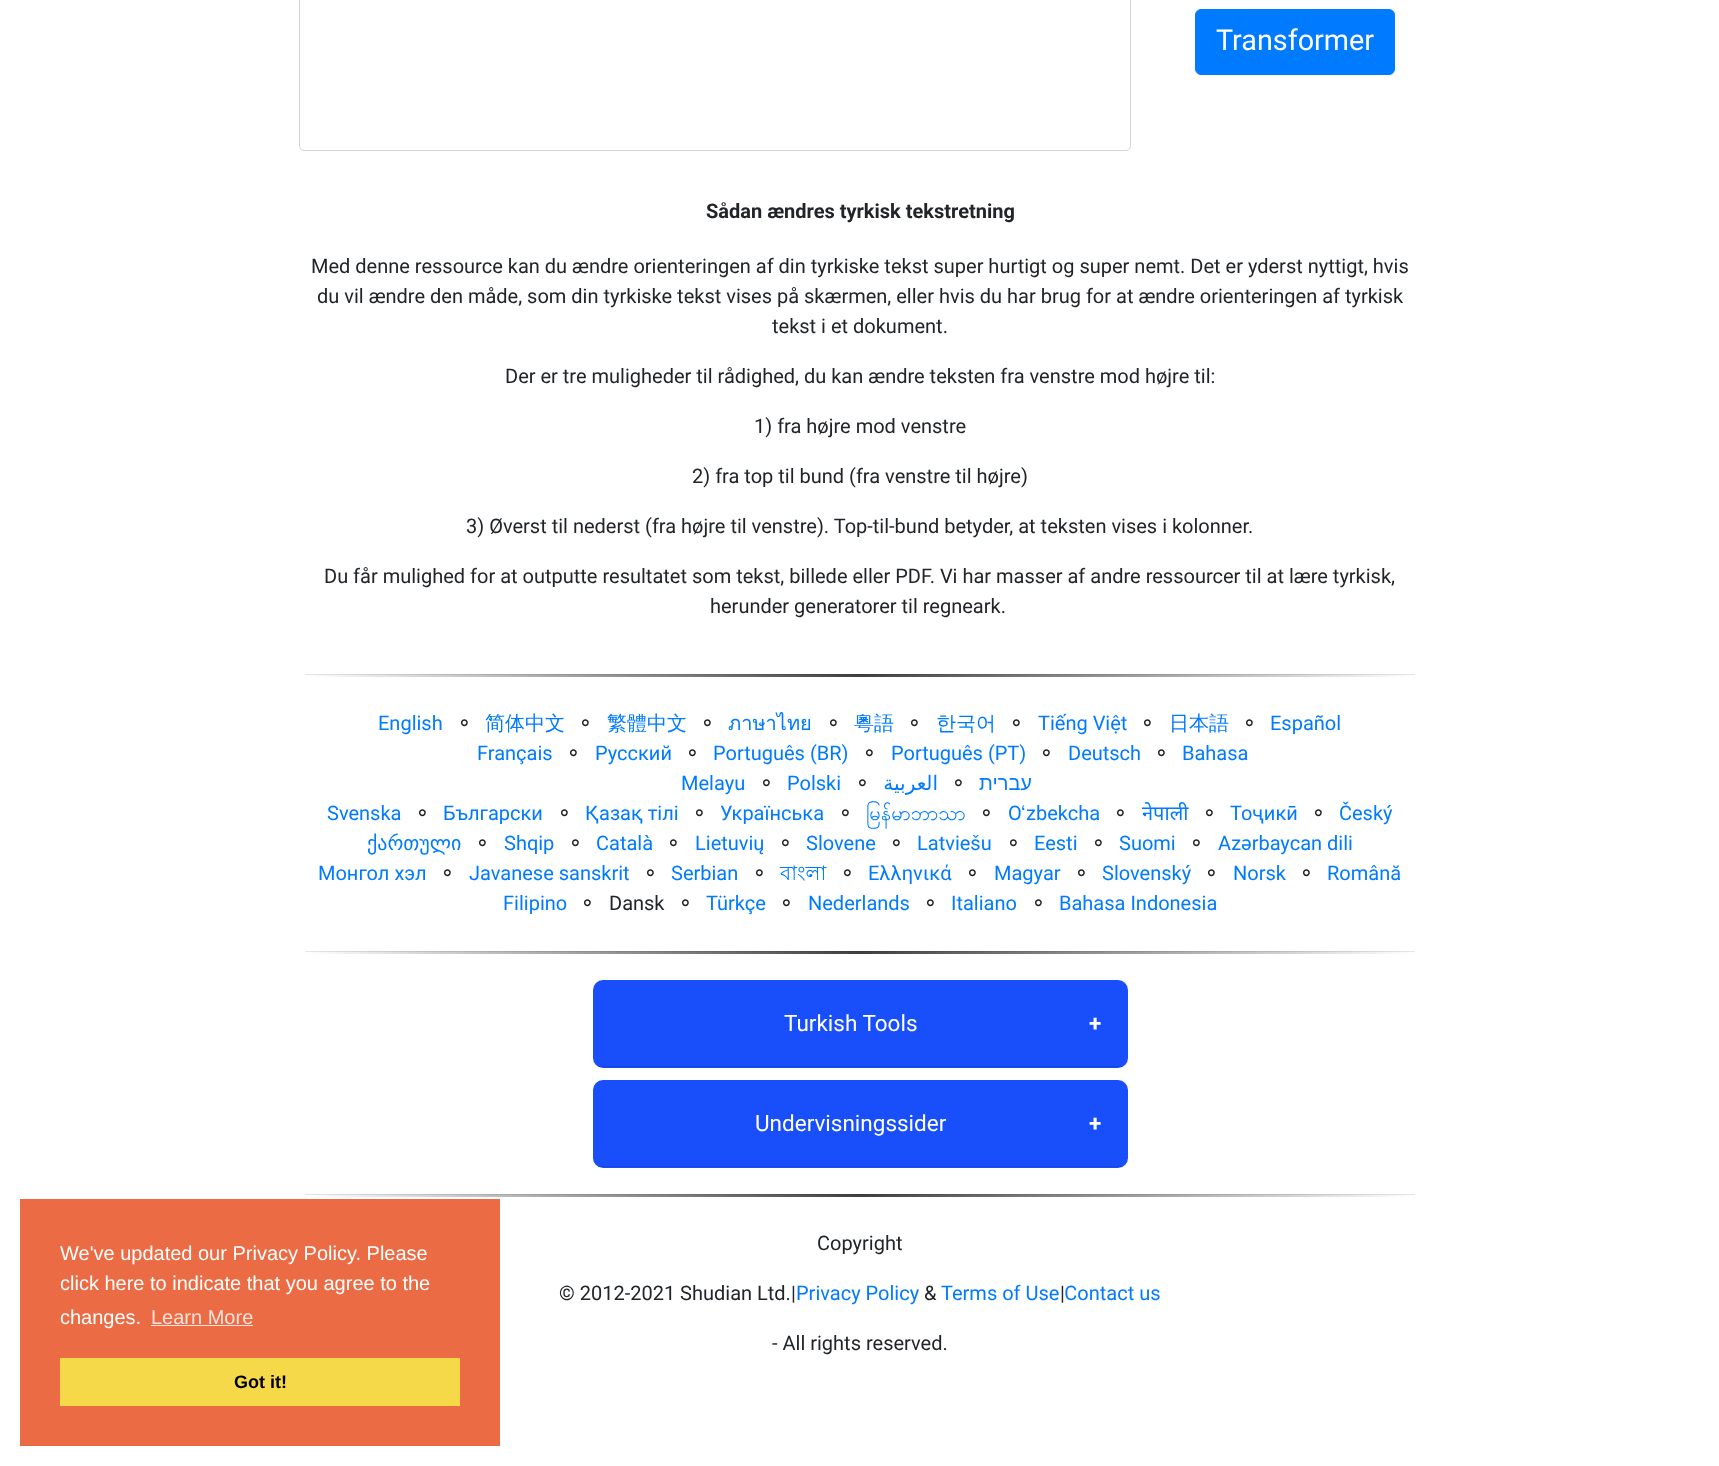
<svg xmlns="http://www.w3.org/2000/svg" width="1719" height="1466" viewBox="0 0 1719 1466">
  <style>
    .t1 { font: 20px Liberation Sans; fill: #fff; }
    .t2 { font: 20px Liberation Sans; fill: #fbe2da; }
    .t3 { font: bold 18px Liberation Sans; fill: #000; }
    .t4 { font: 28.75px Roboto; fill: #fff; }
    .t5 { font: bold 20px Roboto; fill: #212529; }
    .t6 { font: 20px Roboto; fill: #212529; }
    .t7 { font: 20px Roboto; fill: #007bff; }
    .t8 { font: 20px DejaVu Sans; fill: #212529; }
    .t9 { font: 500 20px WenQuanYi Zen Hei; fill: #007bff; }
    .t10 { font: 20px Loma; fill: #007bff; }
    .t11 { font: 20px DejaVu Sans; direction: rtl; fill: #007bff; }
    .t12 { font: 20px Liberation Sans; direction: rtl; fill: #007bff; }
    .t13 { font: 20px Padauk; fill: #007bff; }
    .t14 { font: 20px Liberation Sans; fill: #007bff; }
    .t15 { font: 20px Noto Sans; fill: #007bff; }
    .t16 { font: 20px DejaVu Sans; fill: #007bff; }
    .t17 { font: 20px Lohit Bengali; fill: #007bff; }
    .t18 { font: 22.5px Roboto; fill: #fff; }
    .t19 { font: bold 22.5px Roboto; fill: #fff; }
  </style>
  <defs>
    <linearGradient id="g1" gradientUnits="userSpaceOnUse" x1="305" y1="676" x2="1415" y2="676"><stop offset="0" stop-color="#fff"/><stop offset="0.5" stop-color="#404040"/><stop offset="1" stop-color="#fff"/></linearGradient>
    <linearGradient id="g2" gradientUnits="userSpaceOnUse" x1="305" y1="676" x2="1415" y2="676"><stop offset="0" stop-color="#e6e6e6"/><stop offset="0.5" stop-color="#3a3a3a"/><stop offset="1" stop-color="#e6e6e6"/></linearGradient>
    <linearGradient id="g3" gradientUnits="userSpaceOnUse" x1="305" y1="953" x2="1415" y2="953"><stop offset="0" stop-color="#fff"/><stop offset="0.5" stop-color="#404040"/><stop offset="1" stop-color="#fff"/></linearGradient>
    <linearGradient id="g4" gradientUnits="userSpaceOnUse" x1="305" y1="953" x2="1415" y2="953"><stop offset="0" stop-color="#e6e6e6"/><stop offset="0.5" stop-color="#3a3a3a"/><stop offset="1" stop-color="#e6e6e6"/></linearGradient>
    <linearGradient id="g5" gradientUnits="userSpaceOnUse" x1="305" y1="1196" x2="1415" y2="1196"><stop offset="0" stop-color="#fff"/><stop offset="0.5" stop-color="#404040"/><stop offset="1" stop-color="#fff"/></linearGradient>
    <linearGradient id="g6" gradientUnits="userSpaceOnUse" x1="305" y1="1196" x2="1415" y2="1196"><stop offset="0" stop-color="#e6e6e6"/><stop offset="0.5" stop-color="#3a3a3a"/><stop offset="1" stop-color="#e6e6e6"/></linearGradient>
  </defs>
  <rect width="100%" height="100%" fill="#fff"/>
  <rect x="20" y="1199" width="480" height="247" fill="#eb6c44"/>
  <text x="60" y="1260" class="t1">We've updated our Privacy Policy. Please</text>
  <text x="60" y="1290" class="t1">click here to indicate that you agree to the</text>
  <text x="60" y="1324" class="t1">changes.</text>
  <text x="151" y="1324" class="t2">Learn More</text>
  <rect x="151" y="1325" width="102" height="1" fill="#fbe2da"/>
  <rect x="60" y="1358" width="400" height="48" fill="#f5d948"/>
  <text x="234" y="1388" class="t3">Got it!</text>
  <rect x="299.5" y="-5.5" width="831" height="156" rx="4.5" fill="none" stroke="#ced4da"/>
  <rect x="1195.5" y="9.5" width="199" height="65" rx="5.5" fill="#007bff" stroke="#007bff"/>
  <text x="1216" y="50" class="t4">Transformer</text>
  <text x="706" y="218" class="t5">Sådan ændres tyrkisk tekstretning</text>
  <text x="311" y="273" class="t6">Med denne ressource kan du ændre orienteringen af din tyrkiske tekst super hurtigt og super nemt. Det er yderst nyttigt, hvis</text>
  <text x="317" y="303" class="t6">du vil ændre den måde, som din tyrkiske tekst vises på skærmen, eller hvis du har brug for at ændre orienteringen af tyrkisk</text>
  <text x="772" y="333" class="t6">tekst i et dokument.</text>
  <text x="505" y="383" class="t6">Der er tre muligheder til rådighed, du kan ændre teksten fra venstre mod højre til:</text>
  <text x="754" y="433" class="t6">1) fra højre mod venstre</text>
  <text x="692" y="483" class="t6">2) fra top til bund (fra venstre til højre)</text>
  <text x="466" y="533" class="t6">3) Øverst til nederst (fra højre til venstre). Top-til-bund betyder, at teksten vises i kolonner.</text>
  <text x="324" y="583" class="t6">Du får mulighed for at outputte resultatet som tekst, billede eller PDF. Vi har masser af andre ressourcer til at lære tyrkisk,</text>
  <text x="710" y="613" class="t6">herunder generatorer til regneark.</text>
  <rect x="305" y="675" width="1110" height="2" fill="url(#g1)"/>
  <rect x="305" y="674" width="1110" height="1" fill="url(#g2)"/>
  <text x="378" y="730" class="t7">English</text>
  <text x="456" y="730" class="t8">⚬</text>
  <text x="485" y="730" class="t9">简体中文</text>
  <text x="577" y="730" class="t8">⚬</text>
  <text x="607" y="730" class="t9">繁體中文</text>
  <text x="699" y="730" class="t8">⚬</text>
  <text x="728" y="730" class="t10">ภาษาไทย</text>
  <text x="825" y="730" class="t8">⚬</text>
  <text x="854" y="730" class="t9">粵語</text>
  <text x="906" y="730" class="t8">⚬</text>
  <text x="936" y="730" class="t9">한국어</text>
  <text x="1008" y="730" class="t8">⚬</text>
  <text x="1038" y="730" class="t7">Tiếng Việt</text>
  <text x="1139" y="730" class="t8">⚬</text>
  <text x="1169" y="730" class="t9">日本語</text>
  <text x="1241" y="730" class="t8">⚬</text>
  <text x="1270" y="730" class="t7">Español</text>
  <text x="477" y="760" class="t7">Français</text>
  <text x="565" y="760" class="t8">⚬</text>
  <text x="595" y="760" class="t7">Русский</text>
  <text x="684" y="760" class="t8">⚬</text>
  <text x="713" y="760" class="t7">Português (BR)</text>
  <text x="861" y="760" class="t8">⚬</text>
  <text x="891" y="760" class="t7">Português (PT)</text>
  <text x="1038" y="760" class="t8">⚬</text>
  <text x="1068" y="760" class="t7">Deutsch</text>
  <text x="1153" y="760" class="t8">⚬</text>
  <text x="1182" y="760" class="t7">Bahasa</text>
  <text x="681" y="790" class="t7">Melayu</text>
  <text x="758" y="790" class="t8">⚬</text>
  <text x="787" y="790" class="t7">Polski</text>
  <text x="854" y="790" class="t8">⚬</text>
  <text x="938" y="790" class="t11">العربية</text>
  <text x="950" y="790" class="t8">⚬</text>
  <text x="1032" y="790" class="t12">עברית</text>
  <text x="327" y="820" class="t7">Svenska</text>
  <text x="414" y="820" class="t8">⚬</text>
  <text x="443" y="820" class="t7">Български</text>
  <text x="556" y="820" class="t8">⚬</text>
  <text x="585" y="820" class="t7">Қазақ тілі</text>
  <text x="691" y="820" class="t8">⚬</text>
  <text x="720" y="820" class="t7">Українська</text>
  <text x="837" y="820" class="t8">⚬</text>
  <text x="866" y="820" class="t13">မြန်မာဘာသာ</text>
  <text x="978" y="820" class="t8">⚬</text>
  <text x="1008" y="820" class="t7">O</text>
  <text x="1021" y="820" class="t14">ʻ</text>
  <text x="1026" y="820" class="t7">zbekcha</text>
  <text x="1112" y="820" class="t8">⚬</text>
  <text x="1142" y="820" class="t15">नेपाली</text>
  <text x="1201" y="820" class="t8">⚬</text>
  <text x="1230" y="820" class="t7">Тоҷикӣ</text>
  <text x="1310" y="820" class="t8">⚬</text>
  <text x="1339" y="820" class="t7">Český</text>
  <text x="367" y="850" class="t16">ქართული</text>
  <text x="474" y="850" class="t8">⚬</text>
  <text x="504" y="850" class="t7">Shqip</text>
  <text x="567" y="850" class="t8">⚬</text>
  <text x="596" y="850" class="t7">Català</text>
  <text x="665" y="850" class="t8">⚬</text>
  <text x="695" y="850" class="t7">Lietuvių</text>
  <text x="777" y="850" class="t8">⚬</text>
  <text x="806" y="850" class="t7">Slovene</text>
  <text x="888" y="850" class="t8">⚬</text>
  <text x="917" y="850" class="t7">Latviešu</text>
  <text x="1005" y="850" class="t8">⚬</text>
  <text x="1034" y="850" class="t7">Eesti</text>
  <text x="1090" y="850" class="t8">⚬</text>
  <text x="1119" y="850" class="t7">Suomi</text>
  <text x="1188" y="850" class="t8">⚬</text>
  <text x="1218" y="850" class="t7">Azərbaycan dili</text>
  <text x="318" y="880" class="t7">Монгол хэл</text>
  <text x="439" y="880" class="t8">⚬</text>
  <text x="469" y="880" class="t7">Javanese sanskrit</text>
  <text x="642" y="880" class="t8">⚬</text>
  <text x="671" y="880" class="t7">Serbian</text>
  <text x="751" y="880" class="t8">⚬</text>
  <text x="780" y="880" class="t17">বাংলা</text>
  <text x="839" y="880" class="t8">⚬</text>
  <text x="868" y="880" class="t7">Ελληνικά</text>
  <text x="964" y="880" class="t8">⚬</text>
  <text x="994" y="880" class="t7">Magyar</text>
  <text x="1073" y="880" class="t8">⚬</text>
  <text x="1102" y="880" class="t7">Slovenský</text>
  <text x="1203" y="880" class="t8">⚬</text>
  <text x="1233" y="880" class="t7">Norsk</text>
  <text x="1298" y="880" class="t8">⚬</text>
  <text x="1327" y="880" class="t7">Română</text>
  <text x="503" y="910" class="t7">Filipino</text>
  <text x="579" y="910" class="t8">⚬</text>
  <text x="609" y="910" class="t6">Dansk</text>
  <text x="677" y="910" class="t8">⚬</text>
  <text x="706" y="910" class="t7">Türkçe</text>
  <text x="778" y="910" class="t8">⚬</text>
  <text x="808" y="910" class="t7">Nederlands</text>
  <text x="922" y="910" class="t8">⚬</text>
  <text x="951" y="910" class="t7">Italiano</text>
  <text x="1030" y="910" class="t8">⚬</text>
  <text x="1059" y="910" class="t7">Bahasa Indonesia</text>
  <rect x="305" y="952" width="1110" height="2" fill="url(#g3)"/>
  <rect x="305" y="951" width="1110" height="1" fill="url(#g4)"/>
  <rect x="593" y="980" width="535" height="88" rx="10" fill="#184ffa"/>
  <rect x="598" y="1066" width="525" height="1" fill="#0000001f"/>
  <text x="784" y="1031" class="t18">Turkish Tools</text>
  <text x="1089" y="1031" class="t19">+</text>
  <rect x="593" y="1080" width="535" height="88" rx="10" fill="#184ffa"/>
  <rect x="598" y="1166" width="525" height="1" fill="#0000001f"/>
  <text x="755" y="1131" class="t18">Undervisningssider</text>
  <text x="1089" y="1131" class="t19">+</text>
  <rect x="305" y="1195" width="1110" height="2" fill="url(#g5)"/>
  <rect x="305" y="1194" width="1110" height="1" fill="url(#g6)"/>
  <text x="817" y="1250" class="t6">Copyright</text>
  <text x="559" y="1300" class="t6">© 2012-2021 Shudian Ltd.|</text>
  <text x="796" y="1300" class="t7">Privacy Policy</text>
  <text x="924" y="1300" class="t6">&amp;</text>
  <text x="941" y="1300" class="t7">Terms of Use Contact us</text>
  <text x="1060" y="1300" class="t6">|</text>
  <text x="772" y="1350" class="t6">- All rights reserved.</text>
</svg>
